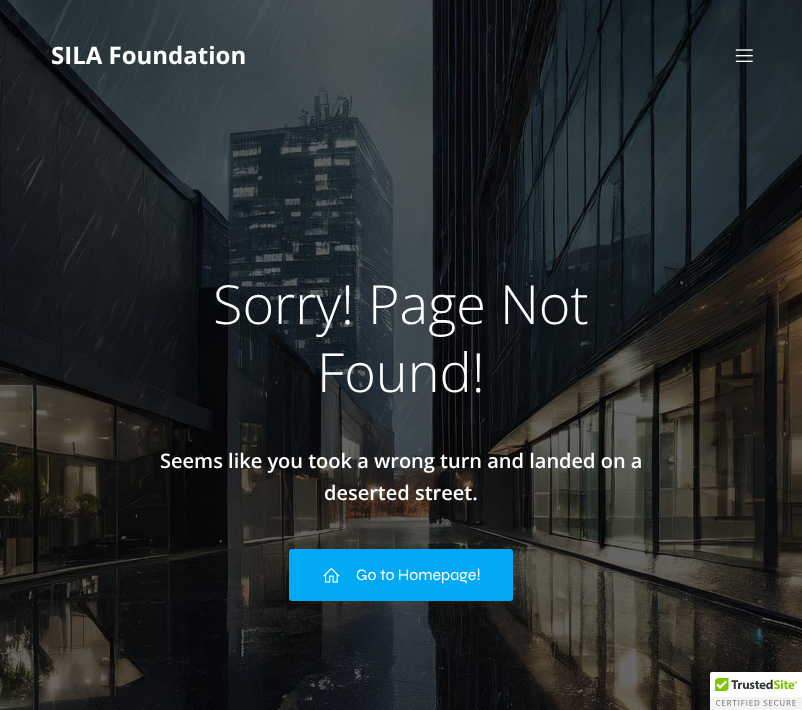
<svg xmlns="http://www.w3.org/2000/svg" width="802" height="710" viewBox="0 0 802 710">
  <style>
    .t1 { font: bold 24px Open Sans; fill: #fff; }
    .t2 { font: 300 54px Open Sans; fill: #fff; }
    .t3 { font: 600 20px Open Sans; fill: #fff; }
    .t4 { font: 16px Syne; fill: #fff; }
  </style>
  <rect width="100%" height="100%" fill="#fff"/>
  <image x="0" y="0" width="802" height="710" href="images/2.png"/>
  <text x="51" y="64" class="t1">SILA Foundation</text>
  <image x="735" y="49" width="18" height="13" href="images/1.png"/>
  <text x="213" y="324" class="t2">Sorry! Page Not</text>
  <text x="317" y="392" class="t2">Found!</text>
  <text x="160" y="468" class="t3">Seems like you took a wrong turn and landed on a</text>
  <text x="324" y="500" class="t3">deserted street.</text>
  <rect x="289" y="549" width="224" height="52" rx="3" fill="#03a9f4"/>
  <image x="323" y="567" width="17" height="16" href="images/3.png"/>
  <text x="356" y="580" class="t4">Go to Homepage!</text>
  <rect x="710" y="672" width="92" height="38" rx="2" fill="#00000033" filter="blur(2.5px)"/>
  <path d="M712 672H802V710H710V674C710 673 711 672 712 672Z" fill="#fff"/>
  <image x="710" y="672" width="92" height="38" href="images/4.png"/>
</svg>
